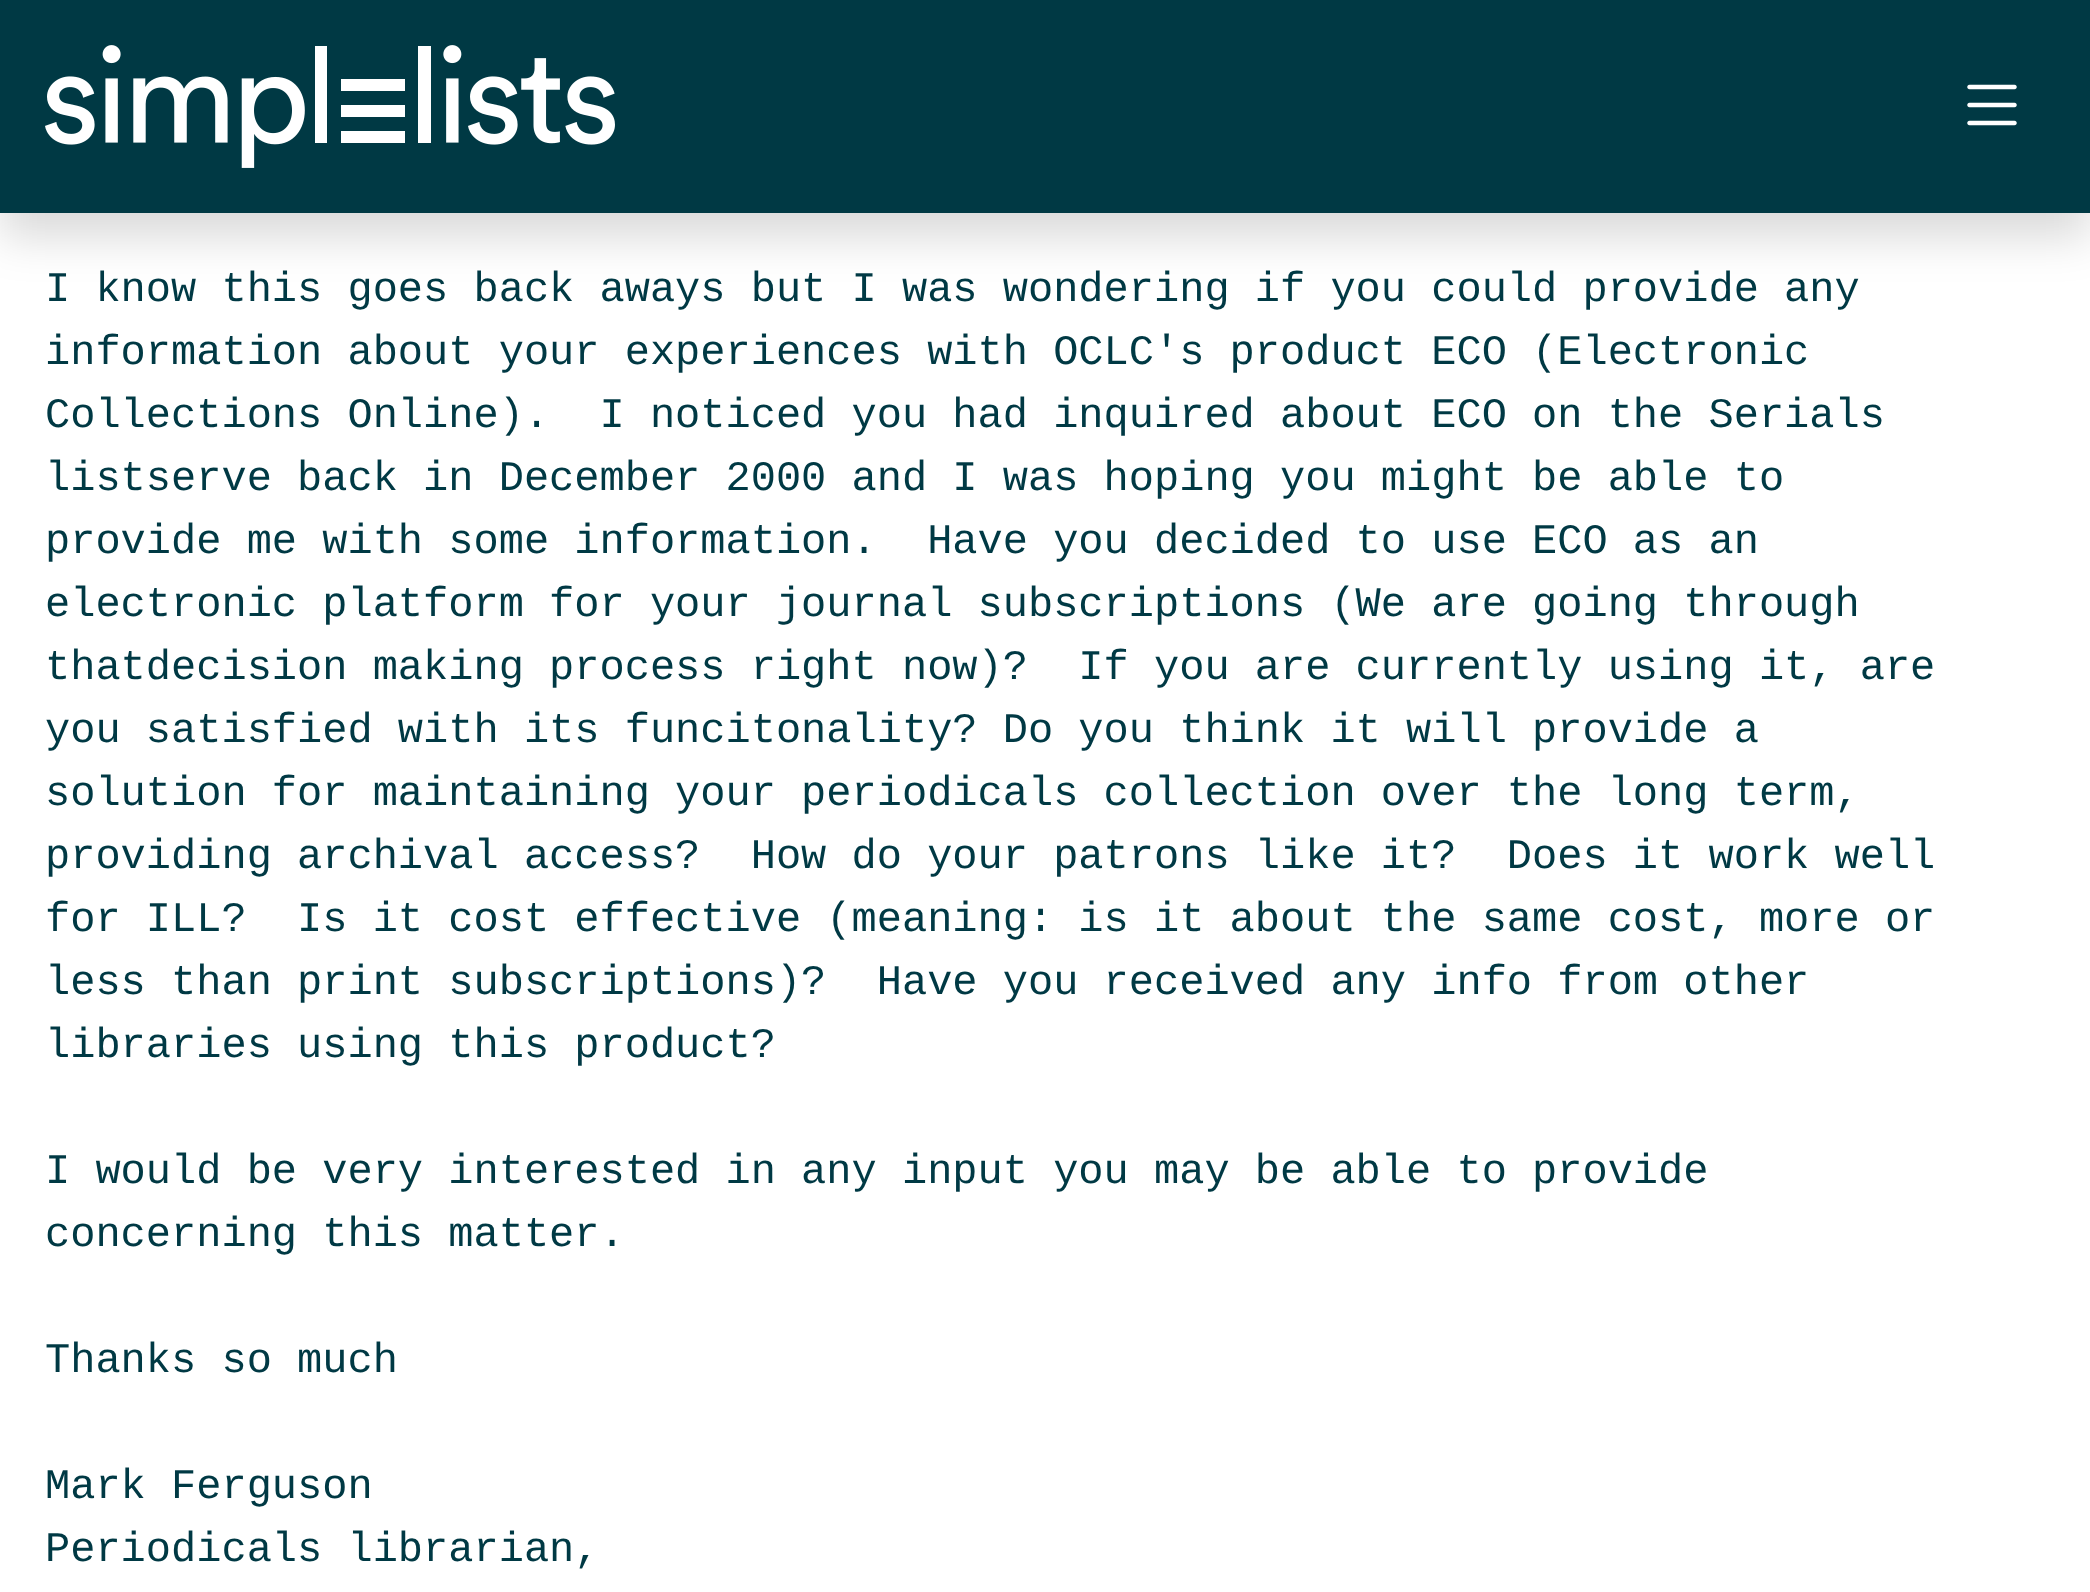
<svg xmlns="http://www.w3.org/2000/svg" width="2090" height="1592" viewBox="0 0 2090 1592">
  <style>
    .t1 { font: 42px Liberation Mono; fill: #003944; }
  </style>
  <rect width="100%" height="100%" fill="#fff"/>
  <rect x="0" y="24" width="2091" height="213" fill="#00000026" filter="blur(22.5px)"/>
  <rect x="0" y="0" width="2090" height="213" fill="#003944"/>
  <image x="45" y="45" width="570" height="123" href="images/1.png"/>
  <image x="1967" y="84" width="50" height="42" href="images/2.png"/>
  <text x="45" y="301" class="t1">I know this goes back aways but I was wondering if you could provide any</text>
  <text x="45" y="364" class="t1">information about your experiences with OCLC's product ECO (Electronic</text>
  <text x="45" y="427" class="t1" xml:space="preserve">Collections Online).  I noticed you had inquired about ECO on the Serials</text>
  <text x="45" y="490" class="t1">listserve back in December 2000 and I was hoping you might be able to</text>
  <text x="45" y="553" class="t1" xml:space="preserve">provide me with some information.  Have you decided to use ECO as an</text>
  <text x="45" y="616" class="t1">electronic platform for your journal subscriptions (We are going through</text>
  <text x="45" y="679" class="t1" xml:space="preserve">thatdecision making process right now)?  If you are currently using it, are</text>
  <text x="45" y="742" class="t1">you satisfied with its funcitonality? Do you think it will provide a</text>
  <text x="45" y="805" class="t1">solution for maintaining your periodicals collection over the long term,</text>
  <text x="45" y="868" class="t1" xml:space="preserve">providing archival access?  How do your patrons like it?  Does it work well</text>
  <text x="45" y="931" class="t1" xml:space="preserve">for ILL?  Is it cost effective (meaning: is it about the same cost, more or</text>
  <text x="45" y="994" class="t1" xml:space="preserve">less than print subscriptions)?  Have you received any info from other</text>
  <text x="45" y="1057" class="t1">libraries using this product?</text>
  <text x="45" y="1183" class="t1">I would be very interested in any input you may be able to provide</text>
  <text x="45" y="1246" class="t1">concerning this matter.</text>
  <text x="45" y="1372" class="t1">Thanks so much</text>
  <text x="45" y="1498" class="t1">Mark Ferguson</text>
  <text x="45" y="1561" class="t1">Periodicals librarian,</text>
</svg>
